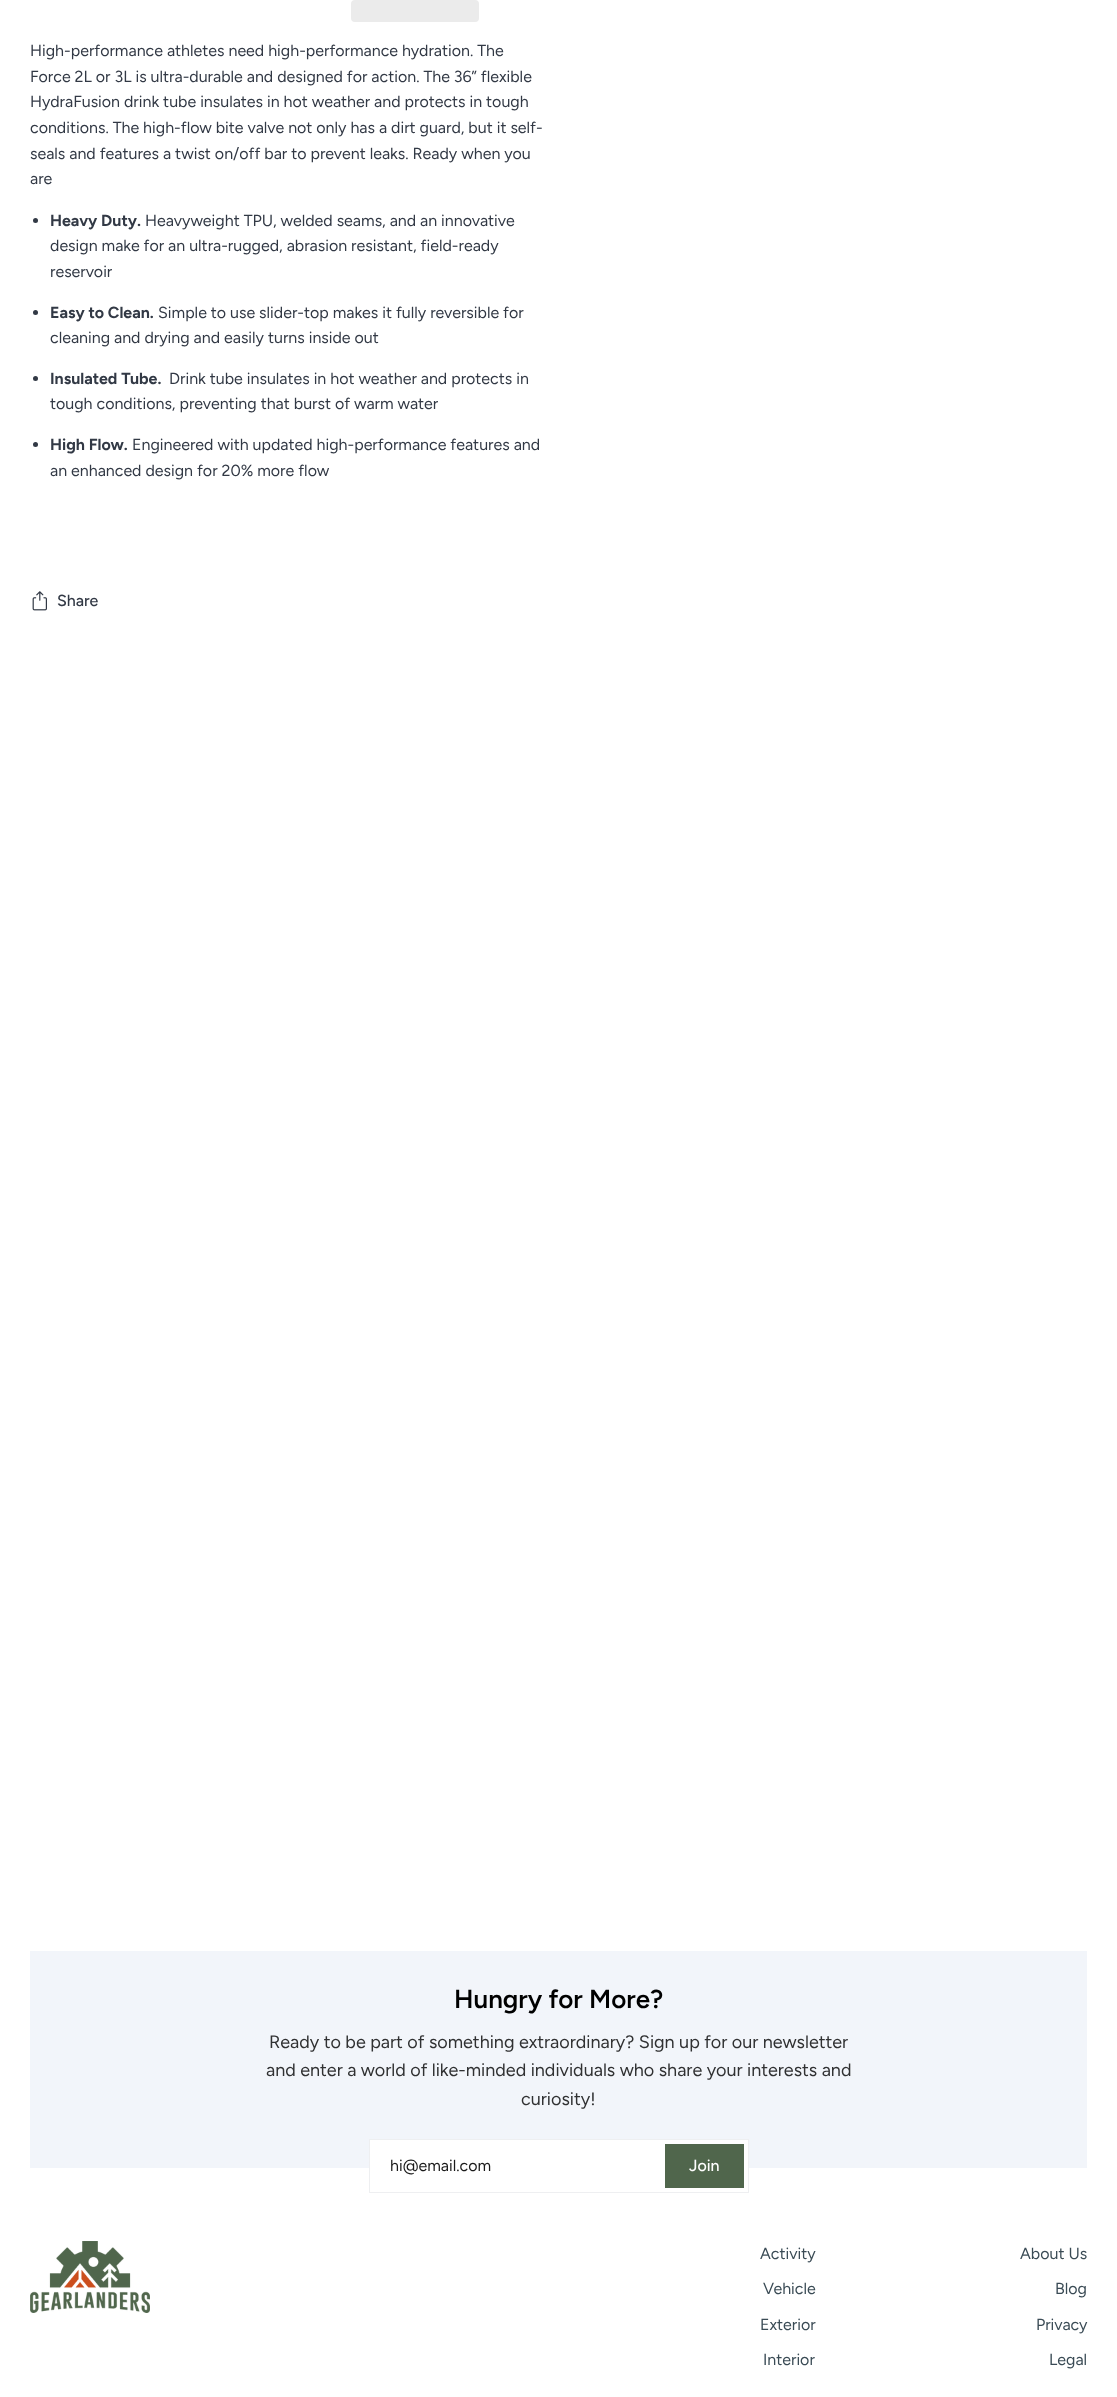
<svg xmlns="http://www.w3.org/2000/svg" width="1117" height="2397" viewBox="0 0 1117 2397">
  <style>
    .t1 { font: 16px Figtree; fill: #323945; }
    .t2 { font: bold 16px Figtree; fill: #323945; }
    .t3 { font: 500 16px Figtree; fill: #323945; }
    .t4 { font: 600 26px Figtree; fill: #000; }
    .t5 { font: 18px Figtree; fill: #303132; }
    .t6 { font: 16px Figtree; fill: #1a1a1a; }
    .t7 { font: 500 16px Figtree; fill: #fff; }
    .t8 { font: 16px Figtree; fill: #3a4b55; }
  </style>
  <rect width="100%" height="100%" fill="#fff"/>
  <rect x="351" y="0" width="128" height="22" rx="4" fill="#ebebeb"/>
  <text x="30" y="56" class="t1">High-performance athletes need high-performance hydration. The</text>
  <text x="30" y="82" class="t1">Force 2L or 3L is ultra-durable and designed for action. The 36” flexible</text>
  <text x="30" y="107" class="t1">HydraFusion drink tube insulates in hot weather and protects in tough</text>
  <text x="30" y="133" class="t1">conditions. The high-flow bite valve not only has a dirt guard, but it self-</text>
  <text x="30" y="159" class="t1">seals and features a twist on/off bar to prevent leaks. Ready when you</text>
  <text x="30" y="184" class="t1">are</text>
  <circle cx="35.5" cy="220.5" r="2.5" fill="#323945"/>
  <text x="50" y="226" class="t2">Heavy Duty.</text>
  <text x="145" y="226" class="t1">Heavyweight TPU, welded seams, and an innovative</text>
  <text x="50" y="251" class="t1">design make for an ultra-rugged, abrasion resistant, field-ready</text>
  <text x="50" y="277" class="t1">reservoir</text>
  <circle cx="35.5" cy="312.5" r="2.5" fill="#323945"/>
  <text x="50" y="318" class="t2">Easy to Clean.</text>
  <text x="158" y="318" class="t1">Simple to use slider-top makes it fully reversible for</text>
  <text x="50" y="343" class="t1">cleaning and drying and easily turns inside out</text>
  <circle cx="35.5" cy="378.5" r="2.5" fill="#323945"/>
  <text x="50" y="384" class="t2">Insulated Tube.</text>
  <text x="169" y="384" class="t1">Drink tube insulates in hot weather and protects in</text>
  <text x="50" y="409" class="t1">tough conditions, preventing that burst of warm water</text>
  <circle cx="35.5" cy="444.5" r="2.5" fill="#323945"/>
  <text x="50" y="450" class="t2">High Flow.</text>
  <text x="132" y="450" class="t1">Engineered with updated high-performance features and</text>
  <text x="50" y="476" class="t1">an enhanced design for 20% more flow</text>
  <image x="32" y="591" width="15" height="20" href="images/1.png"/>
  <text x="57" y="606" class="t3">Share</text>
  <rect x="30" y="1951" width="1057" height="217" fill="#f2f5fa"/>
  <text x="454" y="2008" class="t4">Hungry for More?</text>
  <text x="269" y="2048" class="t5">Ready to be part of something extraordinary? Sign up for our newsletter</text>
  <text x="266" y="2076" class="t5">and enter a world of like-minded individuals who share your interests and</text>
  <text x="521" y="2105" class="t5">curiosity!</text>
  <rect x="370" y="2140" width="378" height="28" fill="#fff"/>
  <rect x="369.5" y="2139.5" width="379" height="53" fill="none" stroke="#eeeff1"/>
  <text x="390" y="2171" class="t6">hi@email.com</text>
  <rect x="665" y="2144" width="79" height="44" fill="#50664c"/>
  <text x="689" y="2171" class="t7">Join</text>
  <image x="30" y="2241" width="120" height="72" href="images/2.png"/>
  <text x="760" y="2259" class="t8">Activity</text>
  <text x="763" y="2294" class="t8">Vehicle</text>
  <text x="760" y="2330" class="t8">Exterior</text>
  <text x="763" y="2365" class="t8">Interior</text>
  <text x="1020" y="2259" class="t8">About Us</text>
  <text x="1055" y="2294" class="t8">Blog</text>
  <text x="1036" y="2330" class="t8">Privacy</text>
  <text x="1049" y="2365" class="t8">Legal</text>
</svg>
